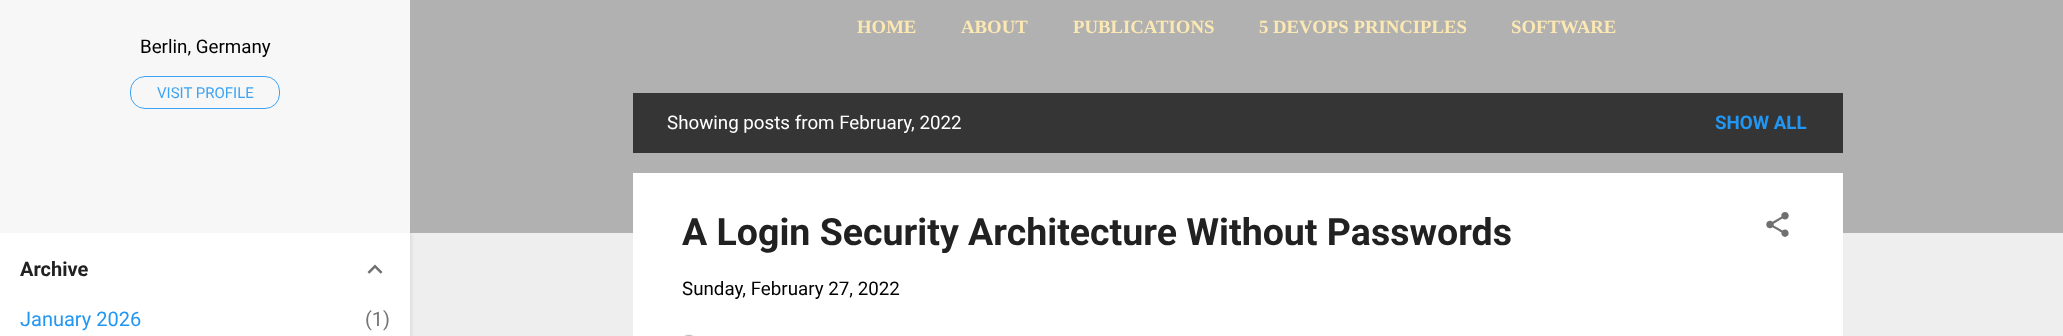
<svg xmlns="http://www.w3.org/2000/svg" width="2063" height="336" viewBox="0 0 2063 336">
  <style>
    .t1 { font: 18.75px Roboto; fill: #000; }
    .t2 { font: 15px Roboto; fill: #3da3f4; }
    .t3 { font: bold 20px Roboto; fill: #212121; }
    .t4 { font: 20px Roboto; fill: #2196f3; }
    .t5 { font: 20px Roboto; fill: #757575; }
    .t6 { font: bold 18.75px Liberation Serif; fill: #fce8b2; }
    .t7 { font: 18.75px Roboto; fill: #fff; }
    .t8 { font: bold 18.75px Roboto; fill: #2196f3; }
    .t9 { font: bold 37.5px Roboto; fill: #212121; }
  </style>
  <rect width="100%" height="100%" fill="#eee"/>
  <rect x="410" y="0" width="1653" height="233" fill="#b1b1b1"/>
  <rect x="1" y="234" width="410" height="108" fill="#0000001a" filter="blur(2px)"/>
  <rect x="0" y="233" width="410" height="103" fill="#fff"/>
  <rect x="0" y="0" width="410" height="233" fill="#f7f7f7"/>
  <text x="140" y="53" class="t1">Berlin, Germany</text>
  <rect x="130.5" y="76.5" width="149" height="32" rx="14.5" fill="none" stroke="#3da3f4"/>
  <text x="157" y="98" class="t2">VISIT PROFILE</text>
  <text x="20" y="276" class="t3">Archive</text>
  <image x="367" y="264" width="16" height="10" href="images/1.png"/>
  <text x="20" y="326" class="t4">January 2026</text>
  <text x="365" y="326" class="t5">(1)</text>
  <text x="857" y="33" class="t6">HOME</text>
  <text x="961" y="33" class="t6">ABOUT</text>
  <text x="1073" y="33" class="t6">PUBLICATIONS</text>
  <text x="1259" y="33" class="t6">5 DEVOPS PRINCIPLES</text>
  <text x="1511" y="33" class="t6">SOFTWARE</text>
  <rect x="633" y="93" width="1210" height="60" fill="#353535"/>
  <text x="667" y="129" class="t7">Showing posts from February, 2022</text>
  <text x="1715" y="129" class="t8">SHOW ALL</text>
  <rect x="633" y="173" width="1210" height="163" fill="#fff"/>
  <text x="682" y="245" class="t9">A Login Security Architecture Without Passwords</text>
  <image x="1766" y="212" width="23" height="25" href="images/2.png"/>
  <text x="682" y="295" class="t1">Sunday, February 27, 2022</text>
  <image x="684" y="334" width="10" height="2" href="images/3.png"/>
</svg>
